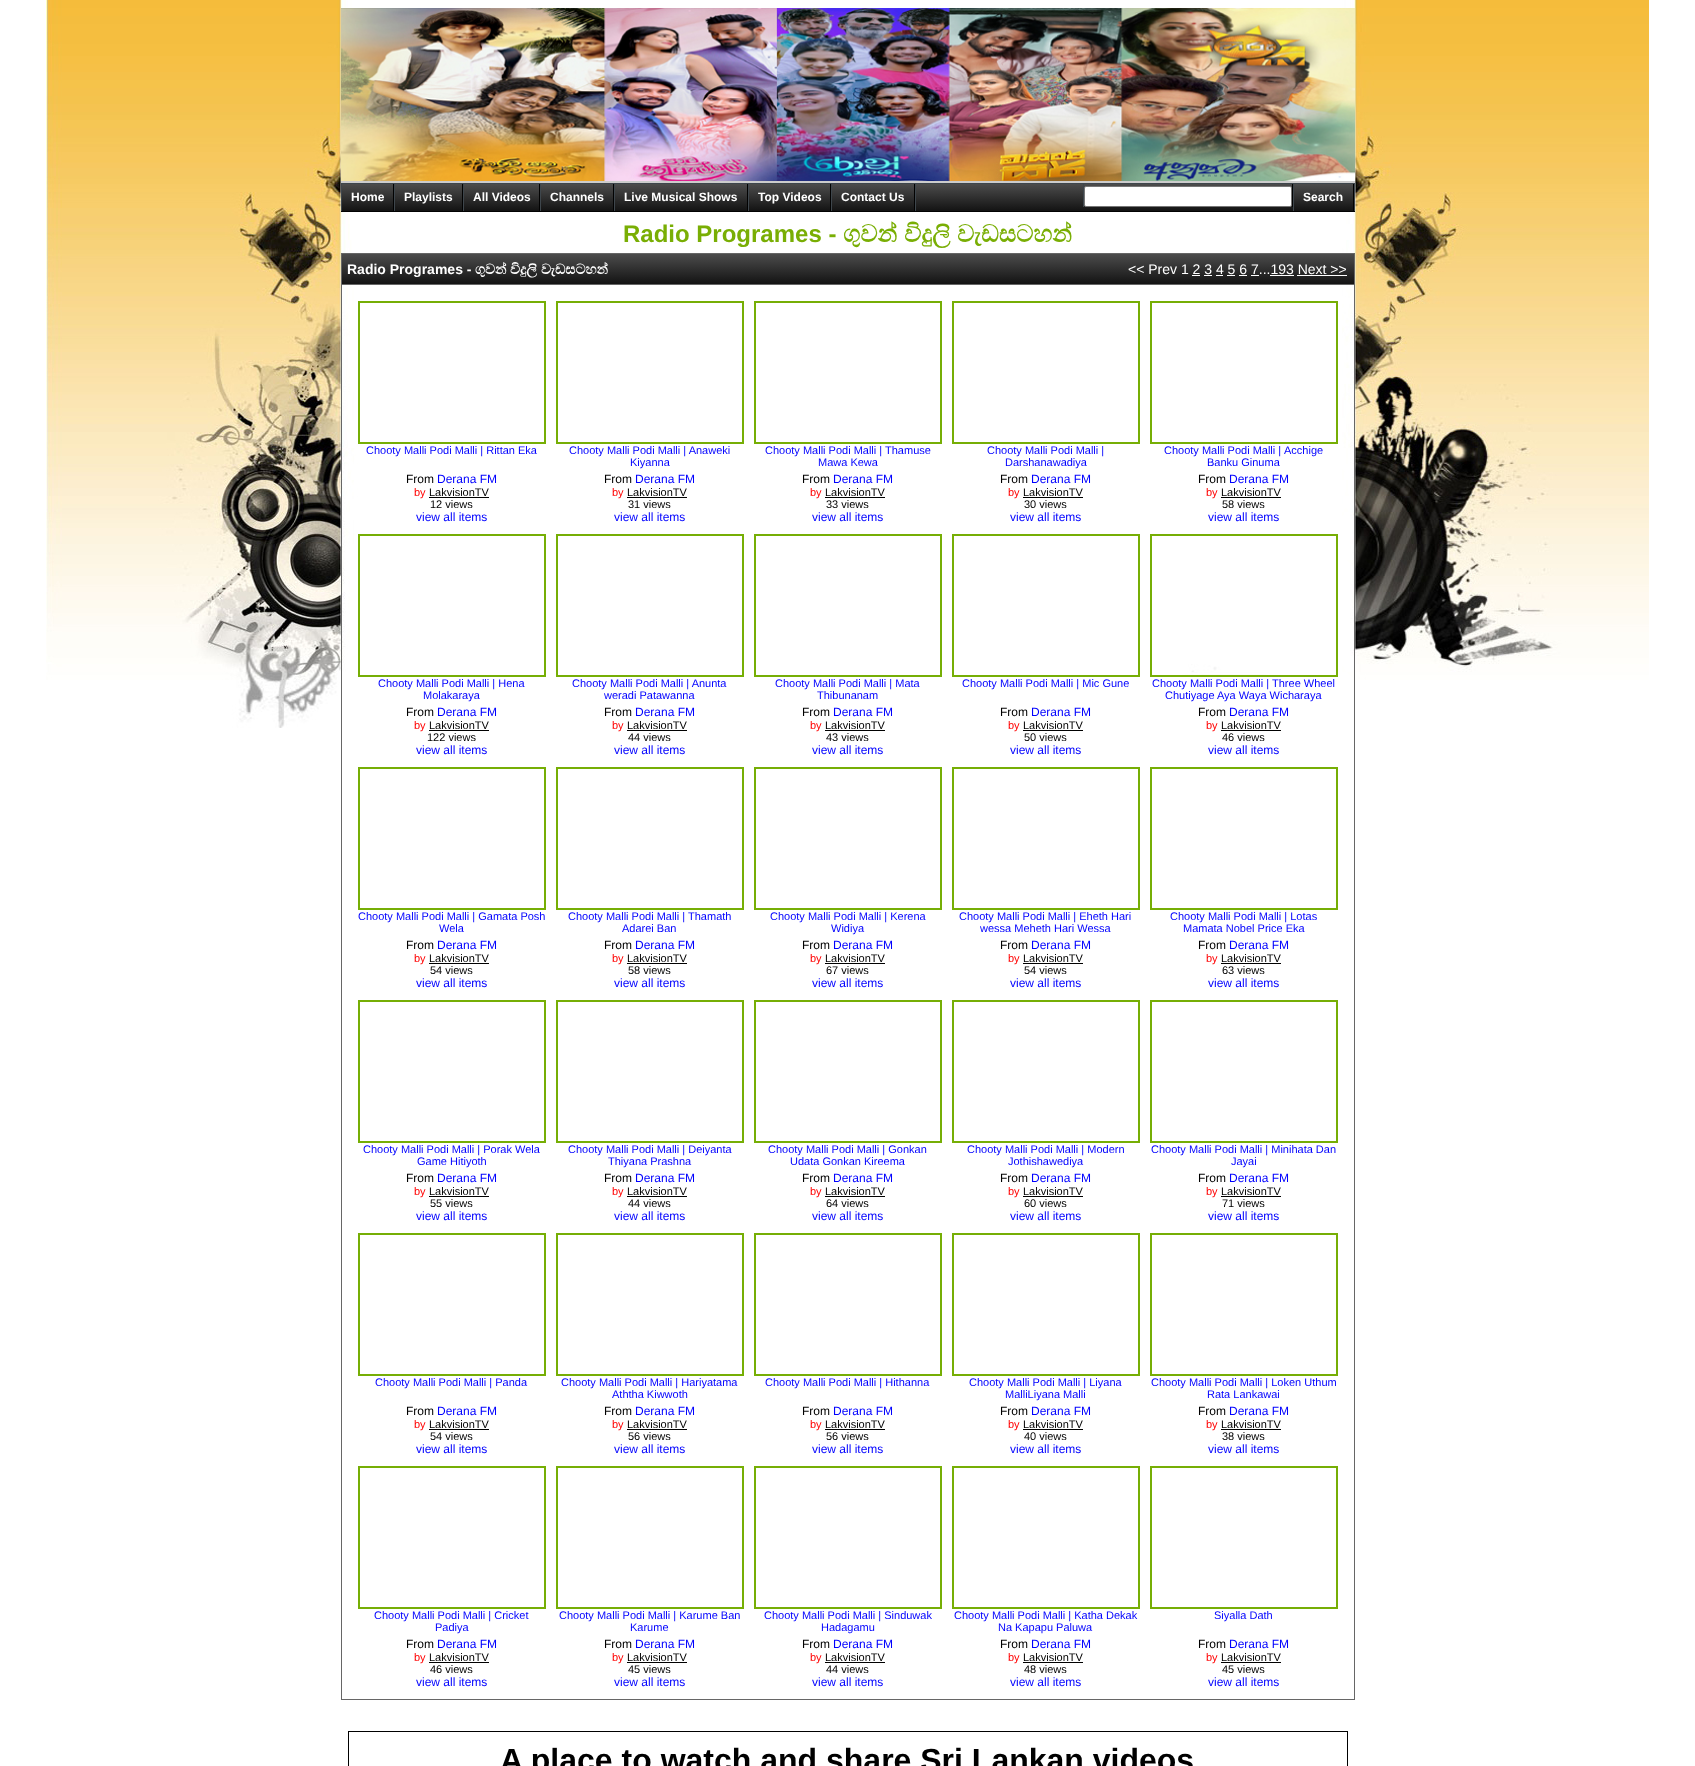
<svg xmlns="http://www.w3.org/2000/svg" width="1695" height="1766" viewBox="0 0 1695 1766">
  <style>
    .t1 { font: bold 12px Liberation Sans; fill: #fff; }
    .t2 { font: bold 24px Liberation Sans; fill: #79ae04; }
    .t3 { font: bold 24px FreeSerif; fill: #79ae04; }
    .t4 { font: bold 14px Liberation Sans; fill: #fff; }
    .t5 { font: bold 14px FreeSerif; fill: #fff; }
    .t6 { font: 14px Liberation Sans; fill: #fff; }
    .t7 { font: 11px Liberation Sans; fill: #00f; }
    .t8 { font: 12px Liberation Sans; fill: #000; }
    .t9 { font: 12px Liberation Sans; fill: #00f; }
    .t10 { font: 11px Liberation Sans; fill: #f00; }
    .t11 { font: 11px Liberation Sans; fill: #000; }
    .t12 { font: bold 32px Liberation Sans; fill: #000; }
  </style>
  <defs>
    <linearGradient id="g1" gradientUnits="userSpaceOnUse" x1="848" y1="184" x2="848" y2="211"><stop offset="0" stop-color="#4c4c4c"/><stop offset="1" stop-color="#131313"/></linearGradient>
    <linearGradient id="g2" gradientUnits="userSpaceOnUse" x1="848" y1="254" x2="848" y2="284"><stop offset="0" stop-color="#4c4c4c"/><stop offset="1" stop-color="#131313"/></linearGradient>
  </defs>
  <rect width="100%" height="100%" fill="#fff"/>
  <image x="46" y="0" width="1603" height="8" href="images/1.png"/>
  <image x="46" y="8" width="1603" height="720" href="images/2.png"/>
  <rect x="341" y="181" width="1014" height="2" fill="#ccc"/>
  <image x="341" y="8" width="1014" height="173" href="images/3.png"/>
  <rect x="342" y="184" width="1011" height="27" fill="url(#g1)"/>
  <rect x="341" y="183" width="1014" height="1" fill="#3e464c"/>
  <rect x="341" y="211" width="1014" height="1" fill="#020202"/>
  <rect x="915" y="184" width="1" height="27" fill="#3e464c"/>
  <rect x="393" y="184" width="1" height="27" fill="#020202"/>
  <rect x="341" y="184" width="1" height="27" fill="#3e464c"/>
  <text x="351" y="201" class="t1">Home</text>
  <rect x="462" y="184" width="1" height="27" fill="#020202"/>
  <rect x="394" y="184" width="1" height="27" fill="#3e464c"/>
  <text x="404" y="201" class="t1">Playlists</text>
  <rect x="539" y="184" width="1" height="27" fill="#020202"/>
  <rect x="463" y="184" width="1" height="27" fill="#3e464c"/>
  <text x="473" y="201" class="t1">All Videos</text>
  <rect x="613" y="184" width="1" height="27" fill="#020202"/>
  <rect x="540" y="184" width="1" height="27" fill="#3e464c"/>
  <text x="550" y="201" class="t1">Channels</text>
  <rect x="747" y="184" width="1" height="27" fill="#020202"/>
  <rect x="614" y="184" width="1" height="27" fill="#3e464c"/>
  <text x="624" y="201" class="t1">Live Musical Shows</text>
  <rect x="830" y="184" width="1" height="27" fill="#020202"/>
  <rect x="748" y="184" width="1" height="27" fill="#3e464c"/>
  <text x="758" y="201" class="t1">Top Videos</text>
  <rect x="914" y="184" width="1" height="27" fill="#020202"/>
  <rect x="831" y="184" width="1" height="27" fill="#3e464c"/>
  <text x="841" y="201" class="t1">Contact Us</text>
  <rect x="1354" y="184" width="1" height="27" fill="#3e464c"/>
  <rect x="1292" y="184" width="1" height="23" fill="#020202"/>
  <rect x="1083" y="184" width="1" height="23" fill="#3e464c"/>
  <rect x="1084.5" y="186.5" width="207" height="20" rx="1.5" fill="#fff" stroke="#767676"/>
  <rect x="1353" y="184" width="1" height="27" fill="#020202"/>
  <rect x="1293" y="184" width="1" height="27" fill="#3e464c"/>
  <text x="1303" y="201" class="t1">Search</text>
  <text x="623" y="242" class="t2">Radio Programes -</text>
  <text x="843" y="242" class="t3">ගුවන්</text>
  <text x="904" y="242" class="t3">විදුලි</text>
  <text x="957" y="242" class="t3">වැඩසටහන්</text>
  <rect x="342" y="254" width="1012" height="30" fill="url(#g2)"/>
  <rect x="341" y="253" width="1014" height="1" fill="#666"/>
  <rect x="1354" y="253" width="1" height="31" fill="#666"/>
  <rect x="341" y="253" width="1" height="31" fill="#666"/>
  <text x="347" y="274" class="t4">Radio Programes -</text>
  <text x="475" y="274" class="t5">ගුවන්</text>
  <text x="510" y="274" class="t5">විදුලි</text>
  <text x="541" y="274" class="t5">වැඩසටහන්</text>
  <text x="1128" y="274" class="t6">&lt;&lt; Prev 1 2 3 4 5 6 7...193 Next &gt;&gt;</text>
  <rect x="1192" y="275" width="8" height="1" fill="#fff"/>
  <rect x="1204" y="275" width="8" height="1" fill="#fff"/>
  <rect x="1216" y="275" width="7" height="1" fill="#fff"/>
  <rect x="1227" y="275" width="8" height="1" fill="#fff"/>
  <rect x="1239" y="275" width="8" height="1" fill="#fff"/>
  <rect x="1251" y="275" width="8" height="1" fill="#fff"/>
  <rect x="1270" y="275" width="24" height="1" fill="#fff"/>
  <rect x="1297" y="275" width="50" height="1" fill="#fff"/>
  <rect x="341.5" y="284.5" width="1013" height="1415" fill="none" stroke="#666"/>
  <rect x="359" y="302" width="186" height="141" fill="none" stroke="#76ae05" stroke-width="2"/>
  <text x="366" y="454" class="t7">Chooty Malli Podi Malli | Rittan Eka</text>
  <text x="406" y="483" class="t8">From</text>
  <text x="437" y="483" class="t9">Derana FM</text>
  <text x="414" y="496" class="t10">by</text>
  <text x="429" y="496" class="t11">LakvisionTV</text>
  <rect x="429" y="497" width="60" height="1" fill="#000"/>
  <text x="430" y="508" class="t11">12 views</text>
  <text x="416" y="521" class="t9">view all items</text>
  <rect x="557" y="302" width="186" height="141" fill="none" stroke="#76ae05" stroke-width="2"/>
  <text x="569" y="454" class="t7">Chooty Malli Podi Malli | Anaweki</text>
  <text x="630" y="466" class="t7">Kiyanna</text>
  <text x="604" y="483" class="t8">From</text>
  <text x="635" y="483" class="t9">Derana FM</text>
  <text x="612" y="496" class="t10">by</text>
  <text x="627" y="496" class="t11">LakvisionTV</text>
  <rect x="627" y="497" width="60" height="1" fill="#000"/>
  <text x="628" y="508" class="t11">31 views</text>
  <text x="614" y="521" class="t9">view all items</text>
  <rect x="755" y="302" width="186" height="141" fill="none" stroke="#76ae05" stroke-width="2"/>
  <text x="765" y="454" class="t7">Chooty Malli Podi Malli | Thamuse</text>
  <text x="818" y="466" class="t7">Mawa Kewa</text>
  <text x="802" y="483" class="t8">From</text>
  <text x="833" y="483" class="t9">Derana FM</text>
  <text x="810" y="496" class="t10">by</text>
  <text x="825" y="496" class="t11">LakvisionTV</text>
  <rect x="825" y="497" width="60" height="1" fill="#000"/>
  <text x="826" y="508" class="t11">33 views</text>
  <text x="812" y="521" class="t9">view all items</text>
  <rect x="953" y="302" width="186" height="141" fill="none" stroke="#76ae05" stroke-width="2"/>
  <text x="987" y="454" class="t7">Chooty Malli Podi Malli |</text>
  <text x="1005" y="466" class="t7">Darshanawadiya</text>
  <text x="1000" y="483" class="t8">From</text>
  <text x="1031" y="483" class="t9">Derana FM</text>
  <text x="1008" y="496" class="t10">by</text>
  <text x="1023" y="496" class="t11">LakvisionTV</text>
  <rect x="1023" y="497" width="60" height="1" fill="#000"/>
  <text x="1024" y="508" class="t11">30 views</text>
  <text x="1010" y="521" class="t9">view all items</text>
  <rect x="1151" y="302" width="186" height="141" fill="none" stroke="#76ae05" stroke-width="2"/>
  <text x="1164" y="454" class="t7">Chooty Malli Podi Malli |</text>
  <text x="1284" y="454" class="t7">Acchige</text>
  <text x="1207" y="466" class="t7">Banku Ginuma</text>
  <text x="1198" y="483" class="t8">From</text>
  <text x="1229" y="483" class="t9">Derana FM</text>
  <text x="1206" y="496" class="t10">by</text>
  <text x="1221" y="496" class="t11">LakvisionTV</text>
  <rect x="1221" y="497" width="60" height="1" fill="#000"/>
  <text x="1222" y="508" class="t11">58 views</text>
  <text x="1208" y="521" class="t9">view all items</text>
  <rect x="359" y="535" width="186" height="141" fill="none" stroke="#76ae05" stroke-width="2"/>
  <text x="378" y="687" class="t7">Chooty Malli Podi Malli | Hena</text>
  <text x="423" y="699" class="t7">Molakaraya</text>
  <text x="406" y="716" class="t8">From</text>
  <text x="437" y="716" class="t9">Derana FM</text>
  <text x="414" y="729" class="t10">by</text>
  <text x="429" y="729" class="t11">LakvisionTV</text>
  <rect x="429" y="730" width="60" height="1" fill="#000"/>
  <text x="427" y="741" class="t11">122 views</text>
  <text x="416" y="754" class="t9">view all items</text>
  <rect x="557" y="535" width="186" height="141" fill="none" stroke="#76ae05" stroke-width="2"/>
  <text x="572" y="687" class="t7">Chooty Malli Podi Malli | Anunta</text>
  <text x="604" y="699" class="t7">weradi Patawanna</text>
  <text x="604" y="716" class="t8">From</text>
  <text x="635" y="716" class="t9">Derana FM</text>
  <text x="612" y="729" class="t10">by</text>
  <text x="627" y="729" class="t11">LakvisionTV</text>
  <rect x="627" y="730" width="60" height="1" fill="#000"/>
  <text x="628" y="741" class="t11">44 views</text>
  <text x="614" y="754" class="t9">view all items</text>
  <rect x="755" y="535" width="186" height="141" fill="none" stroke="#76ae05" stroke-width="2"/>
  <text x="775" y="687" class="t7">Chooty Malli Podi Malli | Mata</text>
  <text x="817" y="699" class="t7">Thibunanam</text>
  <text x="802" y="716" class="t8">From</text>
  <text x="833" y="716" class="t9">Derana FM</text>
  <text x="810" y="729" class="t10">by</text>
  <text x="825" y="729" class="t11">LakvisionTV</text>
  <rect x="825" y="730" width="60" height="1" fill="#000"/>
  <text x="826" y="741" class="t11">43 views</text>
  <text x="812" y="754" class="t9">view all items</text>
  <rect x="953" y="535" width="186" height="141" fill="none" stroke="#76ae05" stroke-width="2"/>
  <text x="962" y="687" class="t7">Chooty Malli Podi Malli | Mic Gune</text>
  <text x="1000" y="716" class="t8">From</text>
  <text x="1031" y="716" class="t9">Derana FM</text>
  <text x="1008" y="729" class="t10">by</text>
  <text x="1023" y="729" class="t11">LakvisionTV</text>
  <rect x="1023" y="730" width="60" height="1" fill="#000"/>
  <text x="1024" y="741" class="t11">50 views</text>
  <text x="1010" y="754" class="t9">view all items</text>
  <rect x="1151" y="535" width="186" height="141" fill="none" stroke="#76ae05" stroke-width="2"/>
  <text x="1152" y="687" class="t7">Chooty Malli Podi Malli | Three Wheel</text>
  <text x="1165" y="699" class="t7">Chutiyage Aya Waya Wicharaya</text>
  <text x="1198" y="716" class="t8">From</text>
  <text x="1229" y="716" class="t9">Derana FM</text>
  <text x="1206" y="729" class="t10">by</text>
  <text x="1221" y="729" class="t11">LakvisionTV</text>
  <rect x="1221" y="730" width="60" height="1" fill="#000"/>
  <text x="1222" y="741" class="t11">46 views</text>
  <text x="1208" y="754" class="t9">view all items</text>
  <rect x="359" y="768" width="186" height="141" fill="none" stroke="#76ae05" stroke-width="2"/>
  <text x="358" y="920" class="t7">Chooty Malli Podi Malli | Gamata Posh</text>
  <text x="439" y="932" class="t7">Wela</text>
  <text x="406" y="949" class="t8">From</text>
  <text x="437" y="949" class="t9">Derana FM</text>
  <text x="414" y="962" class="t10">by</text>
  <text x="429" y="962" class="t11">LakvisionTV</text>
  <rect x="429" y="963" width="60" height="1" fill="#000"/>
  <text x="430" y="974" class="t11">54 views</text>
  <text x="416" y="987" class="t9">view all items</text>
  <rect x="557" y="768" width="186" height="141" fill="none" stroke="#76ae05" stroke-width="2"/>
  <text x="568" y="920" class="t7">Chooty Malli Podi Malli | Thamath</text>
  <text x="622" y="932" class="t7">Adarei Ban</text>
  <text x="604" y="949" class="t8">From</text>
  <text x="635" y="949" class="t9">Derana FM</text>
  <text x="612" y="962" class="t10">by</text>
  <text x="627" y="962" class="t11">LakvisionTV</text>
  <rect x="627" y="963" width="60" height="1" fill="#000"/>
  <text x="628" y="974" class="t11">58 views</text>
  <text x="614" y="987" class="t9">view all items</text>
  <rect x="755" y="768" width="186" height="141" fill="none" stroke="#76ae05" stroke-width="2"/>
  <text x="770" y="920" class="t7">Chooty Malli Podi Malli | Kerena</text>
  <text x="831" y="932" class="t7">Widiya</text>
  <text x="802" y="949" class="t8">From</text>
  <text x="833" y="949" class="t9">Derana FM</text>
  <text x="810" y="962" class="t10">by</text>
  <text x="825" y="962" class="t11">LakvisionTV</text>
  <rect x="825" y="963" width="60" height="1" fill="#000"/>
  <text x="826" y="974" class="t11">67 views</text>
  <text x="812" y="987" class="t9">view all items</text>
  <rect x="953" y="768" width="186" height="141" fill="none" stroke="#76ae05" stroke-width="2"/>
  <text x="959" y="920" class="t7">Chooty Malli Podi Malli | Eheth Hari</text>
  <text x="980" y="932" class="t7">wessa Meheth Hari Wessa</text>
  <text x="1000" y="949" class="t8">From</text>
  <text x="1031" y="949" class="t9">Derana FM</text>
  <text x="1008" y="962" class="t10">by</text>
  <text x="1023" y="962" class="t11">LakvisionTV</text>
  <rect x="1023" y="963" width="60" height="1" fill="#000"/>
  <text x="1024" y="974" class="t11">54 views</text>
  <text x="1010" y="987" class="t9">view all items</text>
  <rect x="1151" y="768" width="186" height="141" fill="none" stroke="#76ae05" stroke-width="2"/>
  <text x="1170" y="920" class="t7">Chooty Malli Podi Malli | Lotas</text>
  <text x="1183" y="932" class="t7">Mamata Nobel Price Eka</text>
  <text x="1198" y="949" class="t8">From</text>
  <text x="1229" y="949" class="t9">Derana FM</text>
  <text x="1206" y="962" class="t10">by</text>
  <text x="1221" y="962" class="t11">LakvisionTV</text>
  <rect x="1221" y="963" width="60" height="1" fill="#000"/>
  <text x="1222" y="974" class="t11">63 views</text>
  <text x="1208" y="987" class="t9">view all items</text>
  <rect x="359" y="1001" width="186" height="141" fill="none" stroke="#76ae05" stroke-width="2"/>
  <text x="363" y="1153" class="t7">Chooty Malli Podi Malli | Porak Wela</text>
  <text x="417" y="1165" class="t7">Game Hitiyoth</text>
  <text x="406" y="1182" class="t8">From</text>
  <text x="437" y="1182" class="t9">Derana FM</text>
  <text x="414" y="1195" class="t10">by</text>
  <text x="429" y="1195" class="t11">LakvisionTV</text>
  <rect x="429" y="1196" width="60" height="1" fill="#000"/>
  <text x="430" y="1207" class="t11">55 views</text>
  <text x="416" y="1220" class="t9">view all items</text>
  <rect x="557" y="1001" width="186" height="141" fill="none" stroke="#76ae05" stroke-width="2"/>
  <text x="568" y="1153" class="t7">Chooty Malli Podi Malli | Deiyanta</text>
  <text x="608" y="1165" class="t7">Thiyana Prashna</text>
  <text x="604" y="1182" class="t8">From</text>
  <text x="635" y="1182" class="t9">Derana FM</text>
  <text x="612" y="1195" class="t10">by</text>
  <text x="627" y="1195" class="t11">LakvisionTV</text>
  <rect x="627" y="1196" width="60" height="1" fill="#000"/>
  <text x="628" y="1207" class="t11">44 views</text>
  <text x="614" y="1220" class="t9">view all items</text>
  <rect x="755" y="1001" width="186" height="141" fill="none" stroke="#76ae05" stroke-width="2"/>
  <text x="768" y="1153" class="t7">Chooty Malli Podi Malli | Gonkan</text>
  <text x="790" y="1165" class="t7">Udata Gonkan Kireema</text>
  <text x="802" y="1182" class="t8">From</text>
  <text x="833" y="1182" class="t9">Derana FM</text>
  <text x="810" y="1195" class="t10">by</text>
  <text x="825" y="1195" class="t11">LakvisionTV</text>
  <rect x="825" y="1196" width="60" height="1" fill="#000"/>
  <text x="826" y="1207" class="t11">64 views</text>
  <text x="812" y="1220" class="t9">view all items</text>
  <rect x="953" y="1001" width="186" height="141" fill="none" stroke="#76ae05" stroke-width="2"/>
  <text x="967" y="1153" class="t7">Chooty Malli Podi Malli | Modern</text>
  <text x="1008" y="1165" class="t7">Jothishawediya</text>
  <text x="1000" y="1182" class="t8">From</text>
  <text x="1031" y="1182" class="t9">Derana FM</text>
  <text x="1008" y="1195" class="t10">by</text>
  <text x="1023" y="1195" class="t11">LakvisionTV</text>
  <rect x="1023" y="1196" width="60" height="1" fill="#000"/>
  <text x="1024" y="1207" class="t11">60 views</text>
  <text x="1010" y="1220" class="t9">view all items</text>
  <rect x="1151" y="1001" width="186" height="141" fill="none" stroke="#76ae05" stroke-width="2"/>
  <text x="1151" y="1153" class="t7">Chooty Malli Podi Malli | Minihata Dan</text>
  <text x="1231" y="1165" class="t7">Jayai</text>
  <text x="1198" y="1182" class="t8">From</text>
  <text x="1229" y="1182" class="t9">Derana FM</text>
  <text x="1206" y="1195" class="t10">by</text>
  <text x="1221" y="1195" class="t11">LakvisionTV</text>
  <rect x="1221" y="1196" width="60" height="1" fill="#000"/>
  <text x="1222" y="1207" class="t11">71 views</text>
  <text x="1208" y="1220" class="t9">view all items</text>
  <rect x="359" y="1234" width="186" height="141" fill="none" stroke="#76ae05" stroke-width="2"/>
  <text x="375" y="1386" class="t7">Chooty Malli Podi Malli | Panda</text>
  <text x="406" y="1415" class="t8">From</text>
  <text x="437" y="1415" class="t9">Derana FM</text>
  <text x="414" y="1428" class="t10">by</text>
  <text x="429" y="1428" class="t11">LakvisionTV</text>
  <rect x="429" y="1429" width="60" height="1" fill="#000"/>
  <text x="430" y="1440" class="t11">54 views</text>
  <text x="416" y="1453" class="t9">view all items</text>
  <rect x="557" y="1234" width="186" height="141" fill="none" stroke="#76ae05" stroke-width="2"/>
  <text x="561" y="1386" class="t7">Chooty Malli Podi Malli | Hariyatama</text>
  <text x="612" y="1398" class="t7">Aththa Kiwwoth</text>
  <text x="604" y="1415" class="t8">From</text>
  <text x="635" y="1415" class="t9">Derana FM</text>
  <text x="612" y="1428" class="t10">by</text>
  <text x="627" y="1428" class="t11">LakvisionTV</text>
  <rect x="627" y="1429" width="60" height="1" fill="#000"/>
  <text x="628" y="1440" class="t11">56 views</text>
  <text x="614" y="1453" class="t9">view all items</text>
  <rect x="755" y="1234" width="186" height="141" fill="none" stroke="#76ae05" stroke-width="2"/>
  <text x="765" y="1386" class="t7">Chooty Malli Podi Malli | Hithanna</text>
  <text x="802" y="1415" class="t8">From</text>
  <text x="833" y="1415" class="t9">Derana FM</text>
  <text x="810" y="1428" class="t10">by</text>
  <text x="825" y="1428" class="t11">LakvisionTV</text>
  <rect x="825" y="1429" width="60" height="1" fill="#000"/>
  <text x="826" y="1440" class="t11">56 views</text>
  <text x="812" y="1453" class="t9">view all items</text>
  <rect x="953" y="1234" width="186" height="141" fill="none" stroke="#76ae05" stroke-width="2"/>
  <text x="969" y="1386" class="t7">Chooty Malli Podi Malli | Liyana</text>
  <text x="1005" y="1398" class="t7">MalliLiyana Malli</text>
  <text x="1000" y="1415" class="t8">From</text>
  <text x="1031" y="1415" class="t9">Derana FM</text>
  <text x="1008" y="1428" class="t10">by</text>
  <text x="1023" y="1428" class="t11">LakvisionTV</text>
  <rect x="1023" y="1429" width="60" height="1" fill="#000"/>
  <text x="1024" y="1440" class="t11">40 views</text>
  <text x="1010" y="1453" class="t9">view all items</text>
  <rect x="1151" y="1234" width="186" height="141" fill="none" stroke="#76ae05" stroke-width="2"/>
  <text x="1151" y="1386" class="t7">Chooty Malli Podi Malli | Loken Uthum</text>
  <text x="1207" y="1398" class="t7">Rata Lankawai</text>
  <text x="1198" y="1415" class="t8">From</text>
  <text x="1229" y="1415" class="t9">Derana FM</text>
  <text x="1206" y="1428" class="t10">by</text>
  <text x="1221" y="1428" class="t11">LakvisionTV</text>
  <rect x="1221" y="1429" width="60" height="1" fill="#000"/>
  <text x="1222" y="1440" class="t11">38 views</text>
  <text x="1208" y="1453" class="t9">view all items</text>
  <rect x="359" y="1467" width="186" height="141" fill="none" stroke="#76ae05" stroke-width="2"/>
  <text x="374" y="1619" class="t7">Chooty Malli Podi Malli | Cricket</text>
  <text x="435" y="1631" class="t7">Padiya</text>
  <text x="406" y="1648" class="t8">From</text>
  <text x="437" y="1648" class="t9">Derana FM</text>
  <text x="414" y="1661" class="t10">by</text>
  <text x="429" y="1661" class="t11">LakvisionTV</text>
  <rect x="429" y="1662" width="60" height="1" fill="#000"/>
  <text x="430" y="1673" class="t11">46 views</text>
  <text x="416" y="1686" class="t9">view all items</text>
  <rect x="557" y="1467" width="186" height="141" fill="none" stroke="#76ae05" stroke-width="2"/>
  <text x="559" y="1619" class="t7">Chooty Malli Podi Malli | Karume Ban</text>
  <text x="630" y="1631" class="t7">Karume</text>
  <text x="604" y="1648" class="t8">From</text>
  <text x="635" y="1648" class="t9">Derana FM</text>
  <text x="612" y="1661" class="t10">by</text>
  <text x="627" y="1661" class="t11">LakvisionTV</text>
  <rect x="627" y="1662" width="60" height="1" fill="#000"/>
  <text x="628" y="1673" class="t11">45 views</text>
  <text x="614" y="1686" class="t9">view all items</text>
  <rect x="755" y="1467" width="186" height="141" fill="none" stroke="#76ae05" stroke-width="2"/>
  <text x="764" y="1619" class="t7">Chooty Malli Podi Malli | Sinduwak</text>
  <text x="821" y="1631" class="t7">Hadagamu</text>
  <text x="802" y="1648" class="t8">From</text>
  <text x="833" y="1648" class="t9">Derana FM</text>
  <text x="810" y="1661" class="t10">by</text>
  <text x="825" y="1661" class="t11">LakvisionTV</text>
  <rect x="825" y="1662" width="60" height="1" fill="#000"/>
  <text x="826" y="1673" class="t11">44 views</text>
  <text x="812" y="1686" class="t9">view all items</text>
  <rect x="953" y="1467" width="186" height="141" fill="none" stroke="#76ae05" stroke-width="2"/>
  <text x="954" y="1619" class="t7">Chooty Malli Podi Malli | Katha Dekak</text>
  <text x="998" y="1631" class="t7">Na Kapapu Paluwa</text>
  <text x="1000" y="1648" class="t8">From</text>
  <text x="1031" y="1648" class="t9">Derana FM</text>
  <text x="1008" y="1661" class="t10">by</text>
  <text x="1023" y="1661" class="t11">LakvisionTV</text>
  <rect x="1023" y="1662" width="60" height="1" fill="#000"/>
  <text x="1024" y="1673" class="t11">48 views</text>
  <text x="1010" y="1686" class="t9">view all items</text>
  <rect x="1151" y="1467" width="186" height="141" fill="none" stroke="#76ae05" stroke-width="2"/>
  <text x="1214" y="1619" class="t7">Siyalla Dath</text>
  <text x="1198" y="1648" class="t8">From</text>
  <text x="1229" y="1648" class="t9">Derana FM</text>
  <text x="1206" y="1661" class="t10">by</text>
  <text x="1221" y="1661" class="t11">LakvisionTV</text>
  <rect x="1221" y="1662" width="60" height="1" fill="#000"/>
  <text x="1222" y="1673" class="t11">45 views</text>
  <text x="1208" y="1686" class="t9">view all items</text>
  <rect x="348.5" y="1731.5" width="999" height="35" fill="none" stroke="#000"/>
  <text x="500" y="1771" class="t12">A place to watch and share Sri Lankan videos</text>
</svg>
